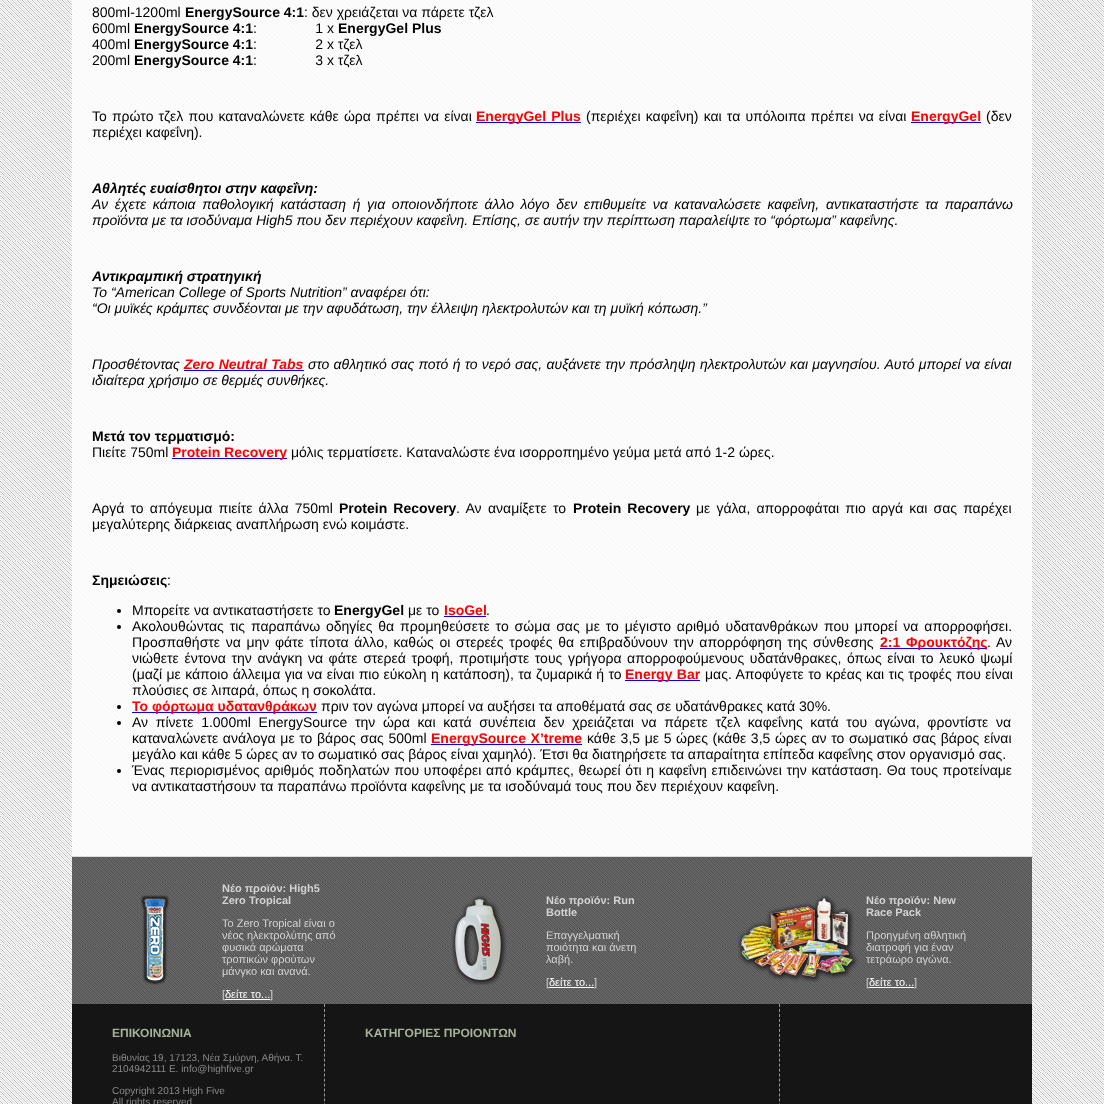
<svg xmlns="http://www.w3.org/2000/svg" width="1104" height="1104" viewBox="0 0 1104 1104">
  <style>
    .t1 { font: 14px Liberation Sans; fill: #000; }
    .t2 { font: bold 14px Liberation Sans; fill: #000; }
    .t3 { font: bold 14px Liberation Sans; fill: #f00; }
    .t4 { font: italic bold 14px Liberation Sans; fill: #000; }
    .t5 { font: italic 14px Liberation Sans; fill: #000; }
    .t6 { font: italic bold 14px Liberation Sans; fill: #f00; }
    .t7 { font: bold 11px Liberation Sans; fill: #d3d3d3; }
    .t8 { font: 11px Liberation Sans; fill: #d3d3d3; }
    .t9 { font: 11px Liberation Sans; fill: #fff; }
    .t10 { font: bold 12px Liberation Sans; fill: #a7b299; }
    .t11 { font: 10px Liberation Sans; fill: #888; }
  </style>
  <rect width="100%" height="100%" fill="#fff"/>
  <image x="0" y="0" width="1104" height="1104" href="images/1.png"/>
  <image x="72" y="0" width="960" height="856" href="images/2.png"/>
  <rect x="72" y="856" width="961" height="1" fill="#ddd"/>
  <text x="92" y="17" class="t1">800ml-1200ml</text>
  <text x="185" y="17" class="t2">EnergySource 4:1</text>
  <text x="304" y="17" class="t1">: δεν χρειάζεται να πάρετε τζελ</text>
  <text x="92" y="33" class="t1">600ml</text>
  <text x="134" y="33" class="t2">EnergySource 4:1</text>
  <text x="253" y="33" class="t1" xml:space="preserve">:               1 x</text>
  <text x="338" y="33" class="t2">EnergyGel Plus</text>
  <text x="92" y="49" class="t1">400ml</text>
  <text x="134" y="49" class="t2">EnergySource 4:1</text>
  <text x="253" y="49" class="t1" xml:space="preserve">:               2 x τζελ</text>
  <text x="92" y="65" class="t1">200ml</text>
  <text x="134" y="65" class="t2">EnergySource 4:1</text>
  <text x="253" y="65" class="t1" xml:space="preserve">:               3 x τζελ</text>
  <text x="92" y="121" word-spacing="1.25" class="t1">Το πρώτο τζελ που καταναλώνετε κάθε ώρα πρέπει να είναι</text>
  <rect x="476" y="122" width="105" height="1" fill="#00e"/>
  <text x="476" y="121" word-spacing="1.25" class="t3">EnergyGel Plus</text>
  <text x="586" y="121" word-spacing="1.25" class="t1">(περιέχει καφεΐνη) και τα υπόλοιπα πρέπει να είναι</text>
  <rect x="911" y="122" width="70" height="1" fill="#00e"/>
  <text x="911" y="121" class="t3">EnergyGel</text>
  <text x="986" y="121" class="t1">(δεν</text>
  <text x="92" y="137" class="t1">περιέχει καφεΐνη).</text>
  <text x="92" y="193" class="t4">Αθλητές ευαίσθητοι στην καφεΐνη:</text>
  <text x="92" y="209" word-spacing="2.75" class="t5">Αν έχετε κάποια παθολογική κατάσταση ή για οποιονδήποτε άλλο λόγο δεν επιθυμείτε να καταναλώσετε καφεΐνη, αντικαταστήστε τα παραπάνω</text>
  <text x="92" y="225" class="t5">προϊόντα με τα ισοδύναμα High5 που δεν περιέχουν καφεΐνη. Επίσης, σε αυτήν την περίπτωση παραλείψτε το “φόρτωμα” καφεΐνης.</text>
  <text x="92" y="281" class="t4">Αντικραμπική στρατηγική</text>
  <text x="92" y="297" class="t5">Το “American College of Sports Nutrition” αναφέρει ότι:</text>
  <text x="92" y="313" class="t5">“Οι μυϊκές κράμπες συνδέονται με την αφυδάτωση, την έλλειψη ηλεκτρολυτών και τη μυϊκή κόπωση.”</text>
  <text x="92" y="369" class="t5">Προσθέτοντας</text>
  <text x="184" y="369" word-spacing="0.4" class="t6">Zero Neutral Tabs</text>
  <rect x="184" y="370" width="120" height="1" fill="#00e"/>
  <text x="308" y="369" word-spacing="0.4" class="t5">στο αθλητικό σας ποτό ή το νερό σας, αυξάνετε την πρόσληψη ηλεκτρολυτών και μαγνησίου. Αυτό μπορεί να είναι</text>
  <text x="92" y="385" class="t5">ιδιαίτερα χρήσιμο σε θερμές συνθήκες.</text>
  <text x="92" y="441" class="t2">Μετά τον τερματισμό:</text>
  <text x="92" y="457" class="t1">Πιείτε 750ml</text>
  <rect x="172" y="458" width="115" height="1" fill="#00e"/>
  <text x="172" y="457" class="t3">Protein Recovery</text>
  <text x="291" y="457" class="t1">μόλις τερματίσετε. Καταναλώστε ένα ισορροπημένο γεύμα μετά από 1-2 ώρες.</text>
  <text x="92" y="513" word-spacing="2.25" class="t1">Αργά το απόγευμα πιείτε άλλα 750ml</text>
  <text x="339" y="513" word-spacing="2.25" class="t2">Protein Recovery</text>
  <text x="456" y="513" word-spacing="2.5" class="t1">. Αν αναμίξετε το</text>
  <text x="573" y="513" word-spacing="2.25" class="t2">Protein Recovery</text>
  <text x="696" y="513" word-spacing="2.25" class="t1">με γάλα, απορροφάται πιο αργά και σας παρέχει</text>
  <text x="92" y="529" class="t1">μεγαλύτερης διάρκειας αναπλήρωση ενώ κοιμάστε.</text>
  <text x="92" y="585" class="t2">Σημειώσεις</text>
  <text x="167" y="585" class="t1">:</text>
  <circle cx="119" cy="611" r="2" fill="#000"/>
  <text x="132" y="615" class="t1">Μπορείτε να αντικαταστήσετε το</text>
  <text x="334" y="615" class="t2">EnergyGel</text>
  <text x="408" y="615" class="t1">με το</text>
  <text x="444" y="615" class="t3">IsoGel</text>
  <rect x="444" y="616" width="42" height="1" fill="#00e"/>
  <text x="486" y="615" class="t1">.</text>
  <circle cx="119" cy="627" r="2" fill="#000"/>
  <text x="132" y="631" word-spacing="2" class="t1">Ακολουθώντας τις παραπάνω οδηγίες θα προμηθεύσετε το σώμα σας με το μέγιστο αριθμό υδατανθράκων που μπορεί να απορροφήσει.</text>
  <text x="132" y="647" word-spacing="1.75" class="t1">Προσπαθήστε να μην φάτε τίποτα άλλο, καθώς οι στερεές τροφές θα επιβραδύνουν την απορρόφηση της σύνθεσης</text>
  <rect x="880" y="648" width="107" height="1" fill="#00e"/>
  <text x="880" y="647" word-spacing="2" class="t3">2:1 Φρουκτόζης</text>
  <text x="987" y="647" word-spacing="2" class="t1">. Αν</text>
  <text x="132" y="663" word-spacing="1.7" class="t1">νιώθετε έντονα την ανάγκη να φάτε στερεά τροφή, προτιμήστε τους γρήγορα απορροφούμενους υδατάνθρακες, όπως είναι το λευκό ψωμί</text>
  <text x="132" y="679" word-spacing="0.5" class="t1">(μαζί με κάποιο άλλειμα για να είναι πιο εύκολη η κατάποση), τα ζυμαρικά ή το</text>
  <rect x="625" y="680" width="75" height="1" fill="#00e"/>
  <text x="625" y="679" word-spacing="0.5" class="t3">Energy Bar</text>
  <text x="705" y="679" word-spacing="0.5" class="t1">μας. Αποφύγετε το κρέας και τις τροφές που είναι</text>
  <text x="132" y="695" class="t1">πλούσιες σε λιπαρά, όπως η σοκολάτα.</text>
  <circle cx="119" cy="707" r="2" fill="#000"/>
  <rect x="132" y="712" width="185" height="1" fill="#00e"/>
  <text x="132" y="711" class="t3">Το φόρτωμα υδατανθράκων</text>
  <text x="321" y="711" class="t1">πριν τον αγώνα μπορεί να αυξήσει τα αποθέματά σας σε υδατάνθρακες κατά 30%.</text>
  <circle cx="119" cy="723" r="2" fill="#000"/>
  <text x="132" y="727" word-spacing="3.75" class="t1">Αν πίνετε 1.000ml EnergySource την ώρα και κατά συνέπεια δεν χρειάζεται να πάρετε τζελ καφεΐνης κατά του αγώνα, φροντίστε να</text>
  <text x="132" y="743" word-spacing="0.75" class="t1">καταναλώνετε ανάλογα με το βάρος σας 500ml</text>
  <rect x="431" y="744" width="151" height="1" fill="#00e"/>
  <text x="431" y="743" word-spacing="0.75" class="t3">EnergySource X’treme</text>
  <text x="587" y="743" word-spacing="0.75" class="t1">κάθε 3,5 με 5 ώρες (κάθε 3,5 ώρες αν το σωματικό σας βάρος είναι</text>
  <text x="132" y="759" class="t1">μεγάλο και κάθε 5 ώρες αν το σωματικό σας βάρος είναι χαμηλό). Έτσι θα διατηρήσετε τα απαραίτητα επίπεδα καφεΐνης στον οργανισμό σας.</text>
  <circle cx="119" cy="771" r="2" fill="#000"/>
  <text x="132" y="775" word-spacing="0.75" class="t1">Ένας περιορισμένος αριθμός ποδηλατών που υποφέρει από κράμπες, θεωρεί ότι η καφεΐνη επιδεινώνει την κατάσταση. Θα τους προτείναμε</text>
  <text x="132" y="791" class="t1">να αντικαταστήσουν τα παραπάνω προϊόντα καφεΐνης με τα ισοδύναμά τους που δεν περιέχουν καφεΐνη.</text>
  <rect x="72" y="857" width="960" height="147" fill="#00000096"/>
  <image x="140" y="895" width="30" height="90" href="images/3.png"/>
  <text x="222" y="892" class="t7">Νέο προϊόν: High5</text>
  <text x="222" y="904" class="t7">Zero Tropical</text>
  <text x="222" y="927" class="t8">Το Zero Tropical είναι ο</text>
  <text x="222" y="939" class="t8">νέος ηλεκτρολύτης από</text>
  <text x="222" y="951" class="t8">φυσικά αρώματα</text>
  <text x="222" y="963" class="t8">τροπικών φρούτων</text>
  <text x="222" y="975" class="t8">μάνγκο και ανανά.</text>
  <text x="222" y="998" class="t8">[</text>
  <text x="225" y="998" class="t9">δείτε το...</text>
  <rect x="225" y="999" width="45" height="1" fill="#fff"/>
  <text x="270" y="998" class="t8">]</text>
  <image x="451" y="895" width="56" height="90" href="images/4.png"/>
  <text x="546" y="904" class="t7">Νέο προϊόν: Run</text>
  <text x="546" y="916" class="t7">Bottle</text>
  <text x="546" y="939" class="t8">Επαγγελματική</text>
  <text x="546" y="951" class="t8">ποιότητα και άνετη</text>
  <text x="546" y="963" class="t8">λαβή.</text>
  <text x="546" y="986" class="t8">[</text>
  <text x="549" y="986" class="t9">δείτε το...</text>
  <rect x="549" y="987" width="45" height="1" fill="#fff"/>
  <text x="594" y="986" class="t8">]</text>
  <rect x="72" y="1054" width="961" height="1" fill="#ddd"/>
  <image x="738" y="895" width="120" height="88" href="images/5.png"/>
  <text x="866" y="904" class="t7">Νέο προϊόν: New</text>
  <text x="866" y="916" class="t7">Race Pack</text>
  <text x="866" y="939" class="t8">Προηγμένη αθλητική</text>
  <text x="866" y="951" class="t8">διατροφή για έναν</text>
  <text x="866" y="963" class="t8">τετράωρο αγώνα.</text>
  <text x="866" y="986" class="t8">[</text>
  <text x="869" y="986" class="t9">δείτε το...</text>
  <rect x="869" y="987" width="45" height="1" fill="#fff"/>
  <text x="914" y="986" class="t8">]</text>
  <rect x="72" y="1004" width="960" height="100" fill="#000000e8"/>
  <path d="M324.5 1004V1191" fill="none" stroke="#999" stroke-dasharray="3 1.97"/>
  <text x="112" y="1037" class="t10">ΕΠΙΚΟΙΝΩΝΙΑ</text>
  <text x="112" y="1061" class="t11">Βιθυνίας 19, 17123, Νέα Σμύρνη, Αθήνα. T.</text>
  <text x="112" y="1072" class="t11">2104942111 E. info@highfive.gr</text>
  <text x="112" y="1094" class="t11">Copyright 2013 High Five</text>
  <text x="112" y="1105" class="t11">All rights reserved</text>
  <path d="M779.5 1004V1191" fill="none" stroke="#999" stroke-dasharray="3 1.97"/>
  <text x="365" y="1037" class="t10">ΚΑΤΗΓΟΡΙΕΣ ΠΡΟΙΟΝΤΩΝ</text>
</svg>
